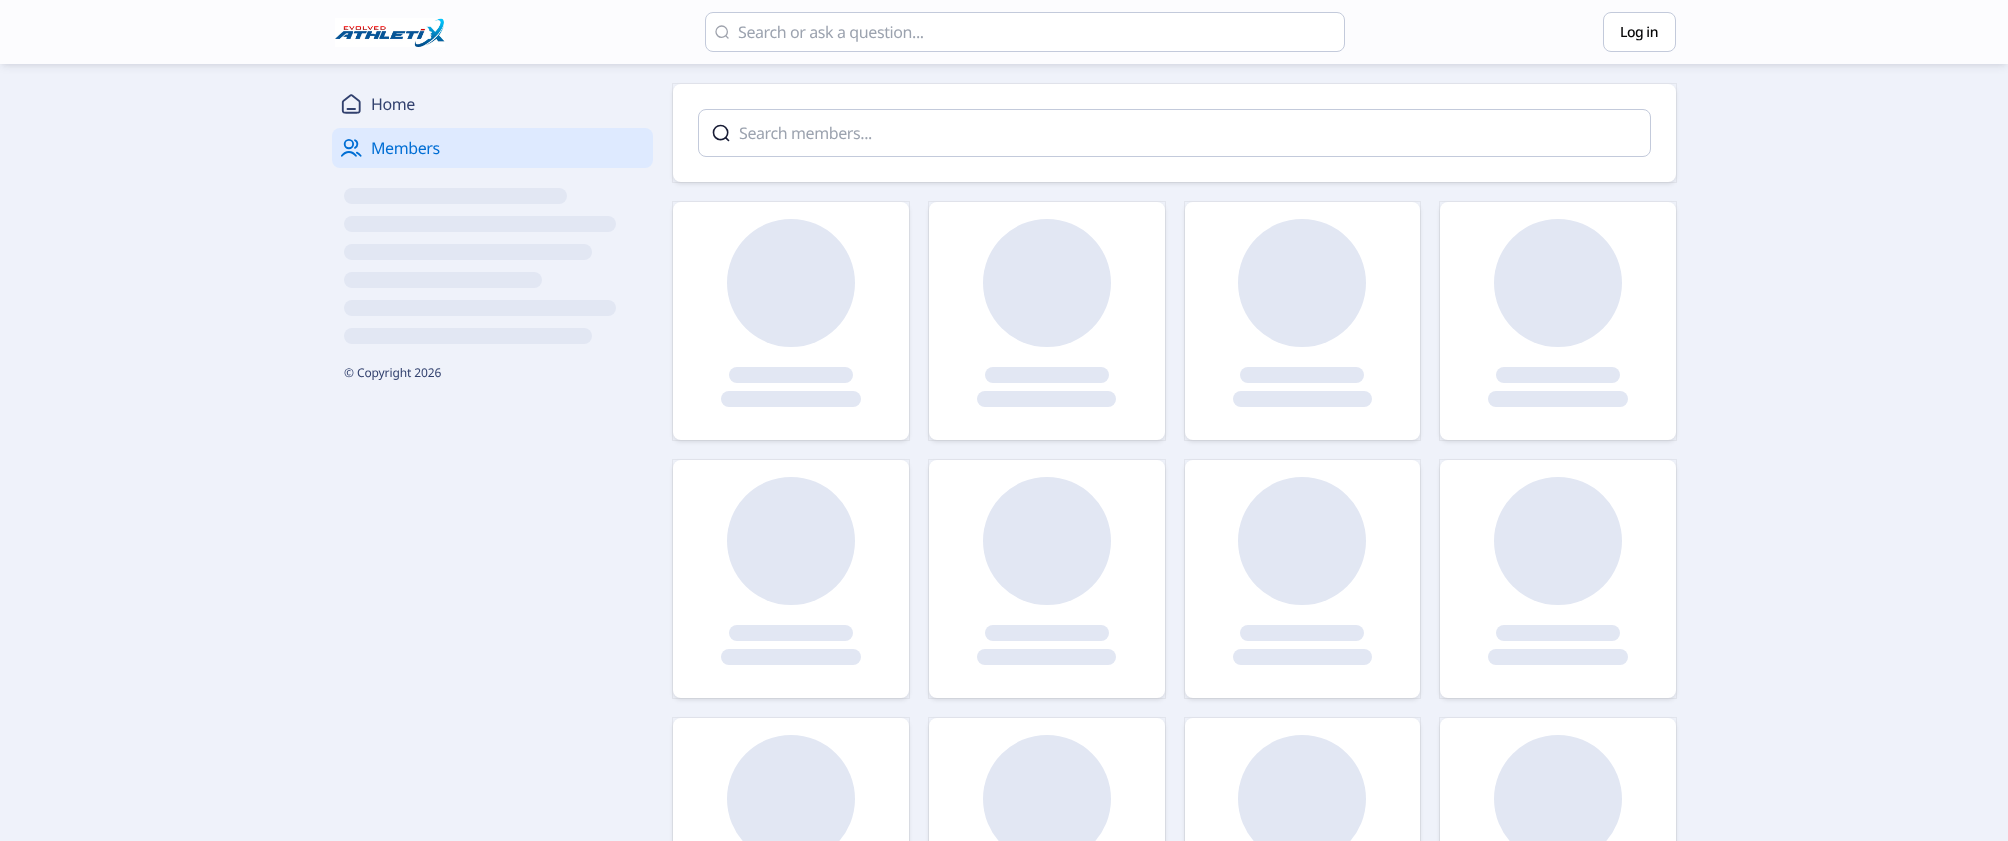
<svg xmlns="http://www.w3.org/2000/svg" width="2008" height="841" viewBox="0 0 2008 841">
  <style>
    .t1 { font: 16px Noto Sans; letter-spacing: -0.4px; fill: #9ca3af; }
    .t2 { font: 500 14px Noto Sans; letter-spacing: -0.5px; fill: #060607; }
    .t3 { font: 16px Noto Sans; letter-spacing: -0.4px; fill: #32416e; }
    .t4 { font: 16px Noto Sans; letter-spacing: -0.4px; fill: #006ed4; }
    .t5 { font: 12px Noto Sans; letter-spacing: -0.1px; fill: #32416e; }
  </style>
  <rect width="100%" height="100%" fill="#eff2fa"/>
  <rect x="2" y="4" width="2004" height="60" fill="#1018280f" filter="blur(2px)"/>
  <rect x="2" y="6" width="2004" height="60" fill="#1018281a" filter="blur(4px)"/>
  <rect x="0" y="0" width="2008" height="64" fill="#fcfcfe"/>
  <image x="335" y="18" width="110" height="29" href="images/1.png"/>
  <rect x="705.5" y="12.5" width="639" height="39" rx="7.5" fill="#fff" stroke="#c3cadb"/>
  <image x="715" y="25" width="14" height="14" href="images/2.png"/>
  <text x="738" y="38" class="t1">Search or ask a question...</text>
  <rect x="1603.5" y="12.5" width="72" height="39" rx="7.5" fill="#fff" stroke="#c3cadb"/>
  <text x="1620" y="37" class="t2">Log in</text>
  <image x="341" y="94" width="20" height="20" href="images/3.png"/>
  <text x="371" y="110" class="t3">Home</text>
  <rect x="332" y="128" width="321" height="40" rx="8" fill="#deeaff"/>
  <image x="341" y="139" width="21" height="18" href="images/4.png"/>
  <text x="371" y="154" class="t4">Members</text>
  <rect x="344" y="188" width="223" height="16" rx="8" fill="#e2e7f3"/>
  <rect x="344" y="216" width="272" height="16" rx="8" fill="#e2e7f3"/>
  <rect x="344" y="244" width="248" height="16" rx="8" fill="#e2e7f3"/>
  <rect x="344" y="272" width="198" height="16" rx="8" fill="#e2e7f3"/>
  <rect x="344" y="300" width="272" height="16" rx="8" fill="#e2e7f3"/>
  <rect x="344" y="328" width="248" height="16" rx="8" fill="#e2e7f3"/>
  <text x="344" y="377" class="t5">© Copyright 2026</text>
  <rect x="673" y="86" width="1003" height="98" rx="8" fill="#0000001a" filter="blur(2px)"/>
  <rect x="672.5" y="83.5" width="1004" height="99" fill="none" stroke="#0000000d"/>
  <rect x="673" y="84" width="1003" height="98" rx="8" fill="#fff"/>
  <rect x="698.5" y="109.5" width="952" height="47" rx="7.5" fill="none" stroke="#c3cadb"/>
  <image x="712" y="124" width="18" height="18" href="images/5.png"/>
  <text x="739" y="139" class="t1">Search members...</text>
  <rect x="673" y="204" width="236" height="238" rx="8" fill="#0000001a" filter="blur(2px)"/>
  <rect x="672.5" y="201.5" width="237" height="239" fill="none" stroke="#0000000d"/>
  <rect x="673" y="202" width="236" height="238" rx="8" fill="#fff"/>
  <circle cx="791" cy="283" r="64" fill="#e2e7f3"/>
  <rect x="729" y="367" width="124" height="16" rx="8" fill="#e2e7f3"/>
  <rect x="721" y="391" width="140" height="16" rx="8" fill="#e2e7f3"/>
  <rect x="929" y="204" width="236" height="238" rx="8" fill="#0000001a" filter="blur(2px)"/>
  <rect x="928.5" y="201.5" width="237" height="239" fill="none" stroke="#0000000d"/>
  <rect x="929" y="202" width="236" height="238" rx="8" fill="#fff"/>
  <circle cx="1047" cy="283" r="64" fill="#e2e7f3"/>
  <rect x="985" y="367" width="124" height="16" rx="8" fill="#e2e7f3"/>
  <rect x="977" y="391" width="139" height="16" rx="8" fill="#e2e7f3"/>
  <rect x="1185" y="204" width="235" height="238" rx="8" fill="#0000001a" filter="blur(2px)"/>
  <rect x="1184.5" y="201.5" width="236" height="239" fill="none" stroke="#0000000d"/>
  <rect x="1185" y="202" width="235" height="238" rx="8" fill="#fff"/>
  <circle cx="1302" cy="283" r="64" fill="#e2e7f3"/>
  <rect x="1240" y="367" width="124" height="16" rx="8" fill="#e2e7f3"/>
  <rect x="1233" y="391" width="139" height="16" rx="8" fill="#e2e7f3"/>
  <rect x="1440" y="204" width="236" height="238" rx="8" fill="#0000001a" filter="blur(2px)"/>
  <rect x="1439.5" y="201.5" width="237" height="239" fill="none" stroke="#0000000d"/>
  <rect x="1440" y="202" width="236" height="238" rx="8" fill="#fff"/>
  <circle cx="1558" cy="283" r="64" fill="#e2e7f3"/>
  <rect x="1496" y="367" width="124" height="16" rx="8" fill="#e2e7f3"/>
  <rect x="1488" y="391" width="140" height="16" rx="8" fill="#e2e7f3"/>
  <rect x="673" y="462" width="236" height="238" rx="8" fill="#0000001a" filter="blur(2px)"/>
  <rect x="672.5" y="459.5" width="237" height="239" fill="none" stroke="#0000000d"/>
  <rect x="673" y="460" width="236" height="238" rx="8" fill="#fff"/>
  <circle cx="791" cy="541" r="64" fill="#e2e7f3"/>
  <rect x="729" y="625" width="124" height="16" rx="8" fill="#e2e7f3"/>
  <rect x="721" y="649" width="140" height="16" rx="8" fill="#e2e7f3"/>
  <rect x="929" y="462" width="236" height="238" rx="8" fill="#0000001a" filter="blur(2px)"/>
  <rect x="928.5" y="459.5" width="237" height="239" fill="none" stroke="#0000000d"/>
  <rect x="929" y="460" width="236" height="238" rx="8" fill="#fff"/>
  <circle cx="1047" cy="541" r="64" fill="#e2e7f3"/>
  <rect x="985" y="625" width="124" height="16" rx="8" fill="#e2e7f3"/>
  <rect x="977" y="649" width="139" height="16" rx="8" fill="#e2e7f3"/>
  <rect x="1185" y="462" width="235" height="238" rx="8" fill="#0000001a" filter="blur(2px)"/>
  <rect x="1184.5" y="459.5" width="236" height="239" fill="none" stroke="#0000000d"/>
  <rect x="1185" y="460" width="235" height="238" rx="8" fill="#fff"/>
  <circle cx="1302" cy="541" r="64" fill="#e2e7f3"/>
  <rect x="1240" y="625" width="124" height="16" rx="8" fill="#e2e7f3"/>
  <rect x="1233" y="649" width="139" height="16" rx="8" fill="#e2e7f3"/>
  <rect x="1440" y="462" width="236" height="238" rx="8" fill="#0000001a" filter="blur(2px)"/>
  <rect x="1439.5" y="459.5" width="237" height="239" fill="none" stroke="#0000000d"/>
  <rect x="1440" y="460" width="236" height="238" rx="8" fill="#fff"/>
  <circle cx="1558" cy="541" r="64" fill="#e2e7f3"/>
  <rect x="1496" y="625" width="124" height="16" rx="8" fill="#e2e7f3"/>
  <rect x="1488" y="649" width="140" height="16" rx="8" fill="#e2e7f3"/>
  <rect x="673" y="720" width="236" height="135" rx="8" fill="#0000001a" filter="blur(2px)"/>
  <rect x="672.5" y="717.5" width="237" height="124" fill="none" stroke="#0000000d"/>
  <rect x="673" y="718" width="236" height="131" rx="8" fill="#fff"/>
  <circle cx="791" cy="799" r="64" fill="#e2e7f3"/>
  <rect x="929" y="720" width="236" height="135" rx="8" fill="#0000001a" filter="blur(2px)"/>
  <rect x="928.5" y="717.5" width="237" height="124" fill="none" stroke="#0000000d"/>
  <rect x="929" y="718" width="236" height="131" rx="8" fill="#fff"/>
  <circle cx="1047" cy="799" r="64" fill="#e2e7f3"/>
  <rect x="1185" y="720" width="235" height="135" rx="8" fill="#0000001a" filter="blur(2px)"/>
  <rect x="1184.5" y="717.5" width="236" height="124" fill="none" stroke="#0000000d"/>
  <rect x="1185" y="718" width="235" height="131" rx="8" fill="#fff"/>
  <circle cx="1302" cy="799" r="64" fill="#e2e7f3"/>
  <rect x="1440" y="720" width="236" height="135" rx="8" fill="#0000001a" filter="blur(2px)"/>
  <rect x="1439.5" y="717.5" width="237" height="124" fill="none" stroke="#0000000d"/>
  <rect x="1440" y="718" width="236" height="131" rx="8" fill="#fff"/>
  <circle cx="1558" cy="799" r="64" fill="#e2e7f3"/>
</svg>
